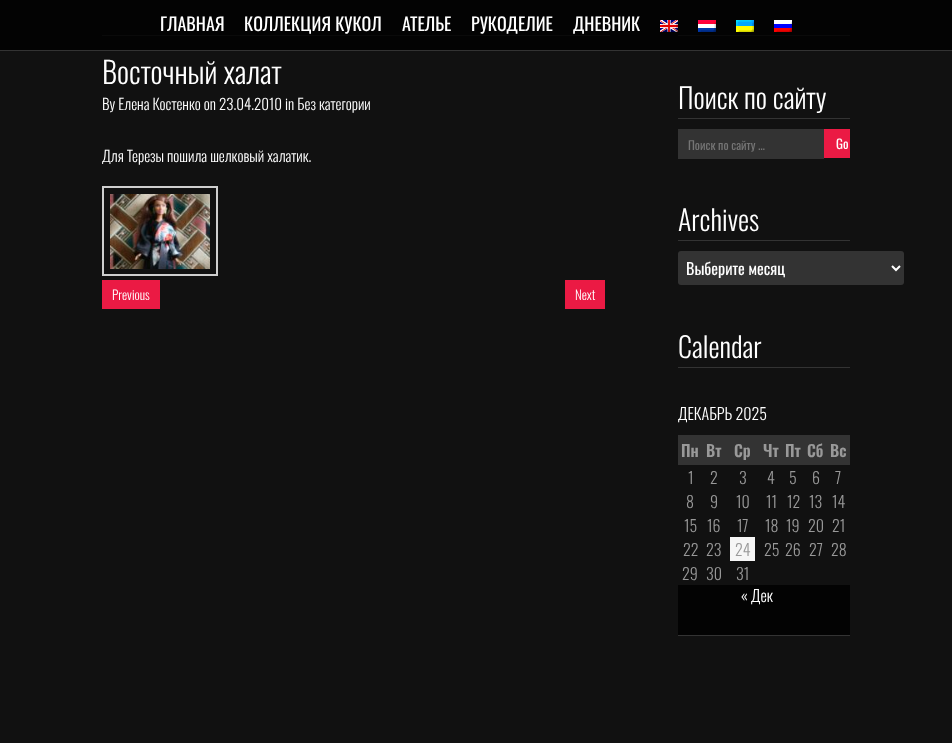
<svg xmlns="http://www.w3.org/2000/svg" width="952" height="743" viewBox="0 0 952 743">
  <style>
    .t1 { font: 18px Oswald; fill: #fff; }
    .t2 { font: 300 30px Oswald; fill: #fff; }
    .t3 { font: 300 15px Oswald; fill: #fff; }
    .t4 { font: 300 13px Oswald; fill: #fff; }
    .t5 { font: 300 28px Oswald; fill: #fff; }
    .t6 { font: 12px Oswald; fill: #757575; }
    .t7 { font: 13px Oswald; fill: #fff; }
    .t8 { font: 16px Oswald; fill: #fff; }
    .t9 { font: 300 16px Oswald; fill: #fff; }
    .t10 { font: 600 16px Oswald; fill: #999; }
    .t11 { font: 300 16px Oswald; fill: #999; }
  </style>
  <rect width="100%" height="100%" fill="#111"/>
  <rect x="0" y="0" width="952" height="50" fill="#030303"/>
  <rect x="0" y="50" width="952" height="1" fill="#333"/>
  <text x="160" y="31" class="t1">ГЛАВНАЯ</text>
  <text x="244" y="31" class="t1">КОЛЛЕКЦИЯ КУКОЛ</text>
  <text x="402" y="31" class="t1">АТЕЛЬЕ</text>
  <text x="471" y="31" class="t1">РУКОДЕЛИЕ</text>
  <text x="573" y="31" class="t1">ДНЕВНИК</text>
  <image x="660" y="20" width="18" height="12" href="images/1.png"/>
  <image x="698" y="20" width="18" height="12" href="images/2.png"/>
  <image x="736" y="20" width="18" height="12" href="images/3.png"/>
  <image x="774" y="20" width="18" height="12" href="images/4.png"/>
  <rect x="102" y="35" width="508" height="1" fill="#0a0a0a"/>
  <text x="102" y="84" class="t2">Восточный халат</text>
  <text x="102" y="110" class="t3">By Елена Костенко on 23.04.2010 in Без категории</text>
  <text x="102" y="162" class="t3">Для Терезы пошила шелковый халатик.</text>
  <rect x="103" y="187" width="114" height="88" fill="none" stroke="#cfcfcf" stroke-width="2"/>
  <image x="110" y="194" width="100" height="75" href="images/5.png"/>
  <rect x="102" y="280" width="58" height="29" fill="#eb1a44"/>
  <text x="112" y="300" class="t4">Previous</text>
  <rect x="565" y="280" width="40" height="29" fill="#eb1a44"/>
  <text x="575" y="300" class="t4">Next</text>
  <rect x="678" y="35" width="172" height="1" fill="#0a0a0a"/>
  <rect x="678" y="118" width="172" height="1" fill="#333"/>
  <text x="678" y="109" class="t5">Поиск по сайту</text>
  <rect x="678" y="129" width="146" height="30" fill="#333"/>
  <text x="688" y="150" class="t6">Поиск по сайту …</text>
  <rect x="824" y="129" width="26" height="29" fill="#eb1a44"/>
  <text x="836" y="149" class="t7">Go</text>
  <rect x="678" y="240" width="172" height="1" fill="#333"/>
  <text x="678" y="231" class="t5">Archives</text>
  <rect x="678" y="251" width="226" height="34" rx="3" fill="#333"/>
  <path d="M892 266L896 270L900 266" fill="none" stroke="#fff" stroke-width="2"/>
  <text x="686" y="275" class="t8">Выберите месяц</text>
  <rect x="678" y="367" width="172" height="1" fill="#333"/>
  <text x="678" y="358" class="t5">Calendar</text>
  <text x="678" y="420" class="t9">ДЕКАБРЬ 2025</text>
  <rect x="678" y="435" width="172" height="30" fill="#333"/>
  <text x="681" y="457" class="t10">Пн</text>
  <text x="706" y="457" class="t10">Вт</text>
  <text x="734" y="457" class="t10">Ср</text>
  <text x="763" y="457" class="t10">Чт</text>
  <text x="785" y="457" class="t10">Пт</text>
  <text x="807" y="457" class="t10">Сб</text>
  <text x="830" y="457" class="t10">Вс</text>
  <text x="688" y="484" class="t11">1</text>
  <text x="710" y="484" class="t11">2</text>
  <text x="739" y="484" class="t11">3</text>
  <text x="767" y="484" class="t11">4</text>
  <text x="789" y="484" class="t11">5</text>
  <text x="812" y="484" class="t11">6</text>
  <text x="835" y="484" class="t11">7</text>
  <text x="686" y="508" class="t11">8</text>
  <text x="710" y="508" class="t11">9</text>
  <text x="736" y="508" class="t11">10</text>
  <text x="766" y="508" class="t11">11</text>
  <text x="787" y="508" class="t11">12</text>
  <text x="809" y="508" class="t11">13</text>
  <text x="832" y="508" class="t11">14</text>
  <text x="684" y="532" class="t11">15</text>
  <text x="707" y="532" class="t11">16</text>
  <text x="737" y="532" class="t11">17</text>
  <text x="765" y="532" class="t11">18</text>
  <text x="786" y="532" class="t11">19</text>
  <text x="808" y="532" class="t11">20</text>
  <text x="832" y="532" class="t11">21</text>
  <text x="683" y="556" class="t11">22</text>
  <text x="706" y="556" class="t11">23</text>
  <rect x="730" y="537" width="25" height="24" fill="#f6f6f6"/>
  <text x="735" y="556" class="t11">24</text>
  <text x="764" y="556" class="t11">25</text>
  <text x="785" y="556" class="t11">26</text>
  <text x="809" y="556" class="t11">27</text>
  <text x="831" y="556" class="t11">28</text>
  <text x="682" y="580" class="t11">29</text>
  <text x="706" y="580" class="t11">30</text>
  <text x="736" y="580" class="t11">31</text>
  <rect x="678" y="585" width="172" height="50" fill="#030303"/>
  <rect x="678" y="635" width="172" height="1" fill="#333"/>
  <text x="741" y="602" class="t9">« Дек</text>
</svg>
